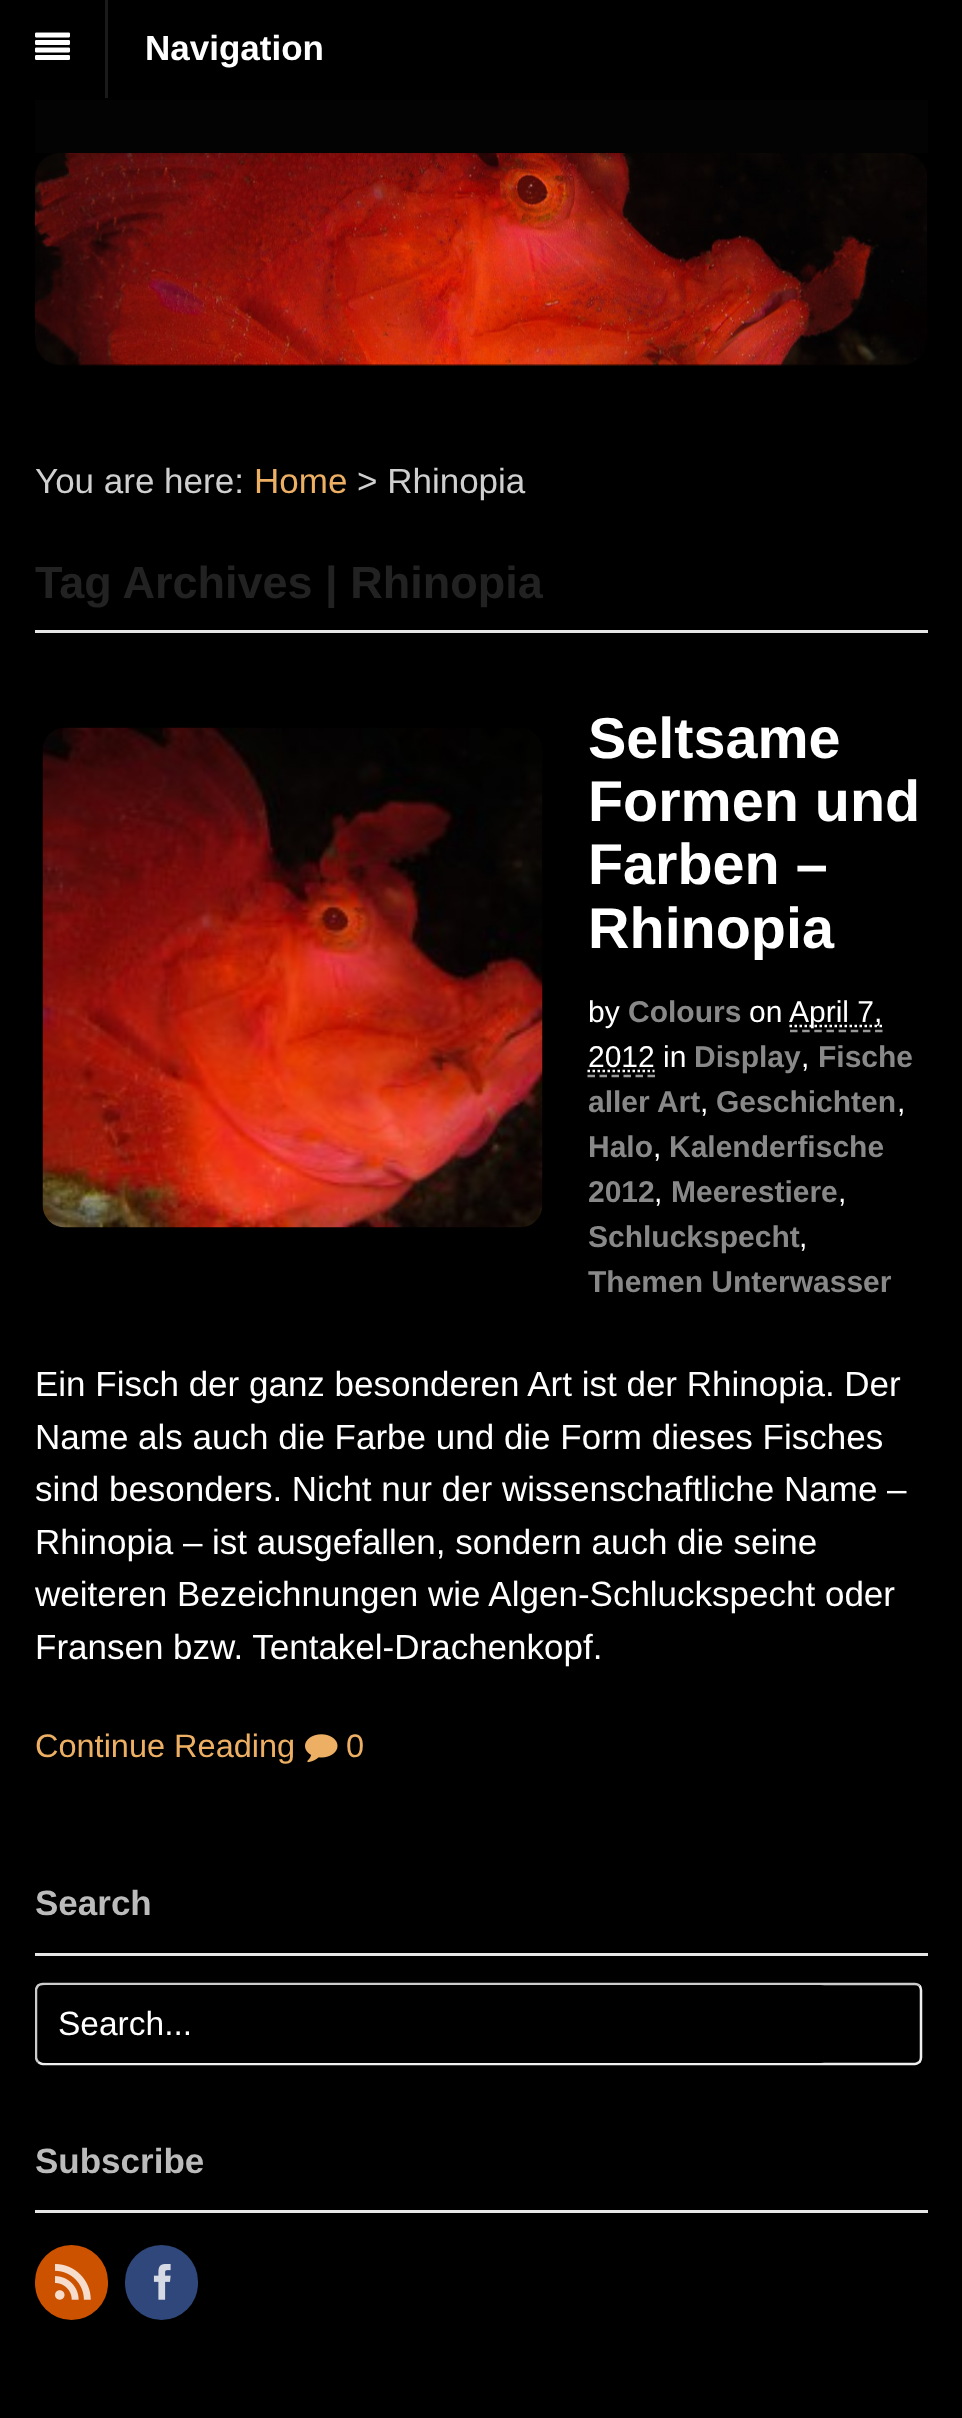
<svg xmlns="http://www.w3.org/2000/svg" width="962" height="2418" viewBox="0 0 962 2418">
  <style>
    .t1 { font: bold 35px Liberation Sans; fill: #fff; }
    .t2 { font: 35px Liberation Sans; fill: #cfcfcf; }
    .t3 { font: 35px Liberation Sans; fill: #edaf63; }
    .t4 { font: bold 45px Liberation Sans; fill: #222; }
    .t5 { font: bold 57.5px Liberation Sans; fill: #fff; }
    .t6 { font: 30px Liberation Sans; fill: #fff; }
    .t7 { font: bold 30px Liberation Sans; fill: #888; }
    .t8 { font: 35px Liberation Sans; fill: #fff; }
    .t9 { font: 32.5px Liberation Sans; fill: #edaf63; }
    .t10 { font: bold 35px Liberation Sans; fill: #bbb; }
    .t11 { font: 33.5px Liberation Sans; fill: #fff; }
  </style>
  <defs>
    <clipPath id="clip1"><rect x="35" y="1883" width="893" height="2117"/></clipPath>
  </defs>
  <rect width="100%" height="100%" fill="#000"/>
  <rect x="105" y="0" width="3" height="98" fill="#1a1a1a"/>
  <image x="35" y="32" width="35" height="28" href="images/1.png"/>
  <text x="145" y="60" class="t1">Navigation</text>
  <rect x="35" y="100" width="893" height="53" fill="#030303"/>
  <image x="35" y="153" width="892" height="213" href="images/2.png"/>
  <text x="35" y="493" class="t2">You are here:</text>
  <text x="254" y="493" class="t3">Home</text>
  <text x="357" y="493" class="t2">&gt; Rhinopia</text>
  <rect x="35" y="630" width="893" height="3" fill="#e6e6e6"/>
  <text x="35" y="598" class="t4">Tag Archives | Rhinopia</text>
  <image x="42" y="727" width="501" height="501" href="images/3.png"/>
  <text x="588" y="758" class="t5">Seltsame</text>
  <text x="588" y="821" class="t5">Formen und</text>
  <text x="588" y="884" class="t5">Farben –</text>
  <text x="588" y="948" class="t5">Rhinopia</text>
  <text x="588" y="1022" class="t6">by</text>
  <text x="628" y="1022" class="t7">Colours</text>
  <text x="749" y="1022" class="t6">on</text>
  <path d="M789.5 1026H883" fill="none" stroke="#fff" stroke-width="2.5" stroke-dasharray="2.5 2.5"/>
  <text x="789" y="1022" class="t6">April 7,</text>
  <path d="M790 1031H882.5" fill="none" stroke="#999" stroke-width="2.5" stroke-dasharray="7.5 4.65"/>
  <text x="588" y="1067" class="t6">2012 in</text>
  <path d="M587.5 1076H655" fill="none" stroke="#999" stroke-width="2.5" stroke-dasharray="7.5 4.5"/>
  <path d="M587.5 1071H654.5" fill="none" stroke="#fff" stroke-width="2.5" stroke-dasharray="2.5 2.5"/>
  <text x="694" y="1067" class="t7">Display</text>
  <text x="801" y="1067" class="t6">,</text>
  <text x="818" y="1067" class="t7">Fische</text>
  <text x="588" y="1112" class="t7">aller Art</text>
  <text x="700" y="1112" class="t6">,</text>
  <text x="716" y="1112" class="t7">Geschichten</text>
  <text x="897" y="1112" class="t6">,</text>
  <text x="588" y="1157" class="t7">Halo</text>
  <text x="653" y="1157" class="t6">,</text>
  <text x="669" y="1157" class="t7">Kalenderfische</text>
  <text x="588" y="1202" class="t7">2012</text>
  <text x="654" y="1202" class="t6">,</text>
  <text x="671" y="1202" class="t7">Meerestiere</text>
  <text x="838" y="1202" class="t6">,</text>
  <text x="588" y="1247" class="t7">Schluckspecht</text>
  <text x="799" y="1247" class="t6">,</text>
  <text x="588" y="1292" class="t7">Themen Unterwasser</text>
  <text x="35" y="1396" class="t8">Ein Fisch der ganz besonderen Art ist der Rhinopia. Der</text>
  <text x="35" y="1449" class="t8">Name als auch die Farbe und die Form dieses Fisches</text>
  <text x="35" y="1501" class="t8">sind besonders. Nicht nur der wissenschaftliche Name –</text>
  <text x="35" y="1554" class="t8">Rhinopia – ist ausgefallen, sondern auch die seine</text>
  <text x="35" y="1606" class="t8">weiteren Bezeichnungen wie Algen-Schluckspecht oder</text>
  <text x="35" y="1659" class="t8">Fransen bzw. Tentakel-Drachenkopf.</text>
  <text x="35" y="1757" class="t9">Continue Reading</text>
  <image x="305" y="1734" width="33" height="29" href="images/4.png"/>
  <text x="346" y="1757" class="t9">0</text>
  <rect x="35" y="1953" width="893" height="3" fill="#e6e6e6"/>
  <text x="35" y="1915" class="t10">Search</text>
  <path d="M919.5 1985.5C920.5 1987 921 1988.5 921 1990V2057.5C921 2059 920.5 2060.5 919.5 2062C918 2063 916.5 2064 915 2064H42.5C41 2064 39.5 2063 38 2062" fill="none" stroke="#efefef" stroke-width="2.5"/>
  <g clip-path="url(#clip1)">
    <path d="M38 2062C37 2060.5 36 2059 36 2057.5V1990C36 1988.5 37 1987 38 1985.5C39.5 1984.5 41 1984 42.5 1984H915C916.5 1984 918 1984.5 919.5 1985.5" fill="none" stroke="#ccc" stroke-width="2.5"/>
  </g>
  <rect x="38" y="1985" width="790" height="78" rx="8" fill="#000"/>
  <text x="58" y="2035" class="t11">Search...</text>
  <rect x="35" y="2210" width="893" height="3" fill="#e6e6e6"/>
  <text x="35" y="2173" class="t10">Subscribe</text>
  <rect x="35" y="2245" width="73" height="75" rx="36.5" fill="#cc5200"/>
  <image x="55" y="2264" width="36" height="36" href="images/5.png"/>
  <rect x="125" y="2245" width="73" height="75" rx="36.5" fill="#2f477a"/>
  <image x="153" y="2264" width="18" height="36" href="images/6.png"/>
</svg>
